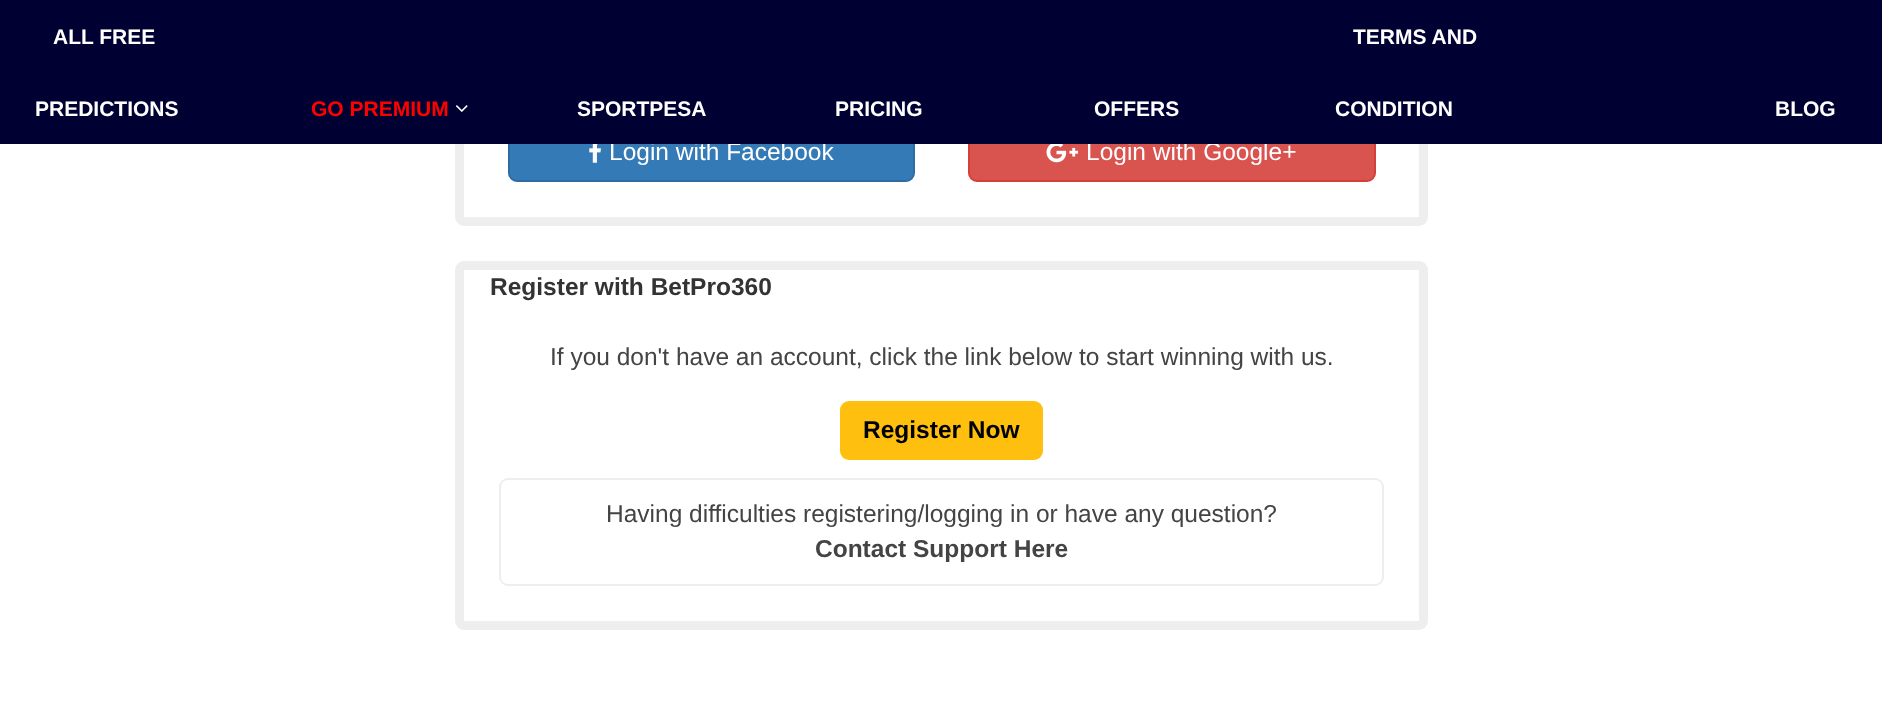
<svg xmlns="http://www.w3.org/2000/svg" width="1882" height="720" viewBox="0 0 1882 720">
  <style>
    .t1 { font: 24.5px Liberation Sans; fill: #fff; }
    .t2 { font: bold 21px Liberation Sans; fill: #fff; }
    .t3 { font: bold 21px Liberation Sans; fill: #f00; }
    .t4 { font: bold 24.5px Liberation Sans; fill: #333; }
    .t5 { font: 24.5px Liberation Sans; fill: #444; }
    .t6 { font: bold 24.5px Liberation Sans; fill: #000; }
    .t7 { font: bold 24.5px Liberation Sans; fill: #444; }
  </style>
  <rect width="100%" height="100%" fill="#fff"/>
  <rect x="459.5" y="-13.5" width="964" height="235" rx="4.5" fill="none" stroke="#eee" stroke-width="9"/>
  <rect x="509" y="124" width="405" height="57" rx="8" fill="#337ab7" stroke="#2e6da4" stroke-width="2"/>
  <text x="609" y="160" class="t1">Login with Facebook</text>
  <rect x="969" y="124" width="406" height="57" rx="8" fill="#d9534f" stroke="#d43f3a" stroke-width="2"/>
  <text x="1086" y="160" class="t1">Login with Google+</text>
  <rect x="0" y="0" width="1882" height="144" fill="#003"/>
  <text x="53" y="44" class="t2">ALL FREE</text>
  <text x="35" y="116" class="t2">PREDICTIONS</text>
  <text x="311" y="116" class="t3">GO PREMIUM</text>
  <image x="456" y="105" width="12" height="7" href="images/1.png"/>
  <text x="577" y="116" class="t2">SPORTPESA</text>
  <text x="835" y="116" class="t2">PRICING</text>
  <text x="1094" y="116" class="t2">OFFERS</text>
  <text x="1353" y="44" class="t2">TERMS AND</text>
  <text x="1335" y="116" class="t2">CONDITION</text>
  <text x="1775" y="116" class="t2">BLOG</text>
  <image x="589" y="144" width="12" height="19" href="images/2.png"/>
  <image x="1046" y="144" width="32" height="19" href="images/3.png"/>
  <rect x="459.5" y="265.5" width="964" height="360" rx="4.5" fill="none" stroke="#eee" stroke-width="9"/>
  <text x="490" y="295" class="t4">Register with BetPro360</text>
  <text x="550" y="365" class="t5">If you don't have an account, click the link below to start winning with us.</text>
  <rect x="840" y="401" width="203" height="59" rx="9" fill="#febf0f"/>
  <text x="863" y="438" class="t6">Register Now</text>
  <rect x="500" y="479" width="883" height="106" rx="8" fill="none" stroke="#eee" stroke-width="2"/>
  <text x="606" y="522" class="t5">Having difficulties registering/logging in or have any question?</text>
  <text x="815" y="557" class="t7">Contact Support Here</text>
</svg>
